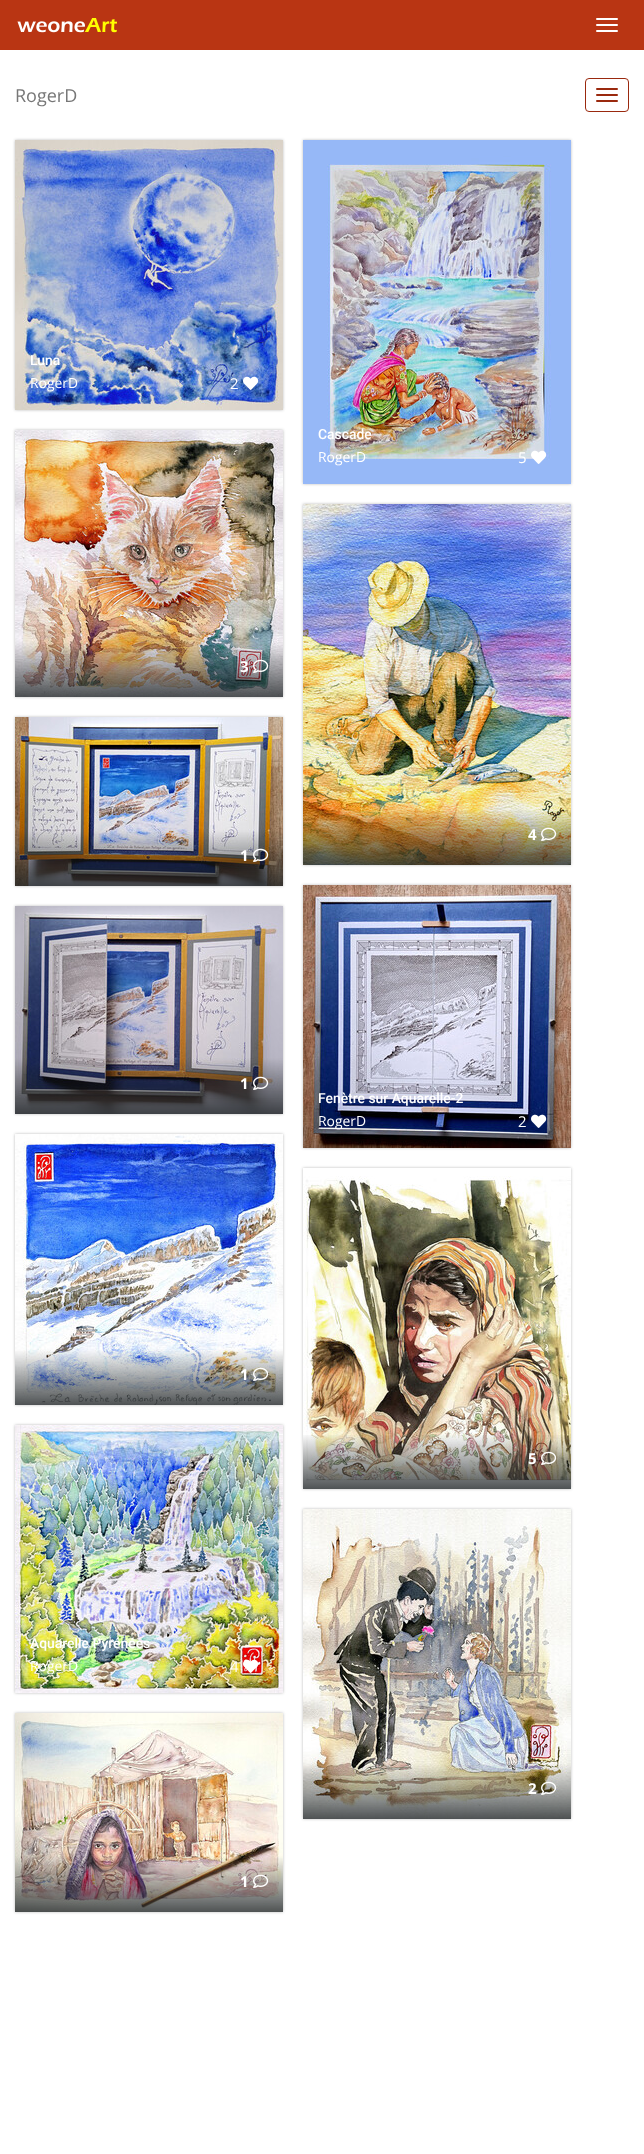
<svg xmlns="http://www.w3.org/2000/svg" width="644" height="2154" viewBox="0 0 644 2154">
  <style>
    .t1 { font: 18px Open Sans; fill: #777; }
    .t2 { font: 500 13.9px Roboto; fill: #fff; }
    .t3 { font: 13.9px Open Sans; fill: #fff; }
    .t4 { font: 15px Open Sans; fill: #fff; }
    .t5 { font: bold 15px Open Sans; fill: #fff; }
  </style>
  <defs>
    <clipPath id="clip1"><path d="M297 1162H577V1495H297ZM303 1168H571V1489H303Z" clip-rule="evenodd"/></clipPath>
    <linearGradient id="g1" gradientUnits="userSpaceOnUse" x1="437" y1="1433" x2="437" y2="1489"><stop offset="0" stop-color="#202527" stop-opacity="0"/><stop offset="1" stop-color="#202527" stop-opacity="0.79"/></linearGradient>
  </defs>
  <rect width="100%" height="100%" fill="#fff"/>
  <rect x="0" y="0" width="644" height="50" fill="#b93513"/>
  <image x="17" y="18" width="100" height="15" href="images/1.png"/>
  <rect x="596" y="18" width="22" height="2" rx="1" fill="#fff"/>
  <rect x="596" y="24" width="22" height="2" rx="1" fill="#fff"/>
  <rect x="596" y="30" width="22" height="2" rx="1" fill="#fff"/>
  <text x="15" y="102" class="t1">RogerD</text>
  <rect x="585.5" y="78.5" width="43" height="33" rx="3.5" fill="none" stroke="#9a290e"/>
  <rect x="596" y="88" width="22" height="2" rx="1" fill="#9a290e"/>
  <rect x="596" y="94" width="22" height="2" rx="1" fill="#9a290e"/>
  <rect x="596" y="100" width="22" height="2" rx="1" fill="#9a290e"/>
  <rect x="15" y="140" width="268" height="270" fill="#bbb" filter="blur(1.5px)"/>
  <image x="15" y="140" width="268" height="270" href="images/2.png"/>
  <text x="30" y="365" class="t2">Luna</text>
  <text x="30" y="388" class="t3">RogerD</text>
  <text x="230" y="389" class="t4">2</text>
  <image x="243" y="376" width="16" height="14" href="images/3.png"/>
  <rect x="303" y="140" width="268" height="344" fill="#bbb" filter="blur(1.5px)"/>
  <image x="303" y="140" width="268" height="344" href="images/4.png"/>
  <text x="318" y="439" class="t2">Cascade</text>
  <text x="318" y="462" class="t3">RogerD</text>
  <text x="518" y="463" class="t4">5</text>
  <image x="531" y="450" width="16" height="14" href="images/5.png"/>
  <rect x="15" y="430" width="268" height="267" fill="#bbb" filter="blur(1.5px)"/>
  <image x="15" y="430" width="268" height="267" href="images/6.png"/>
  <text x="240" y="672" class="t5">3</text>
  <image x="253" y="659" width="16" height="14" href="images/7.png"/>
  <rect x="303" y="504" width="268" height="361" fill="#bbb" filter="blur(1.5px)"/>
  <image x="303" y="504" width="268" height="361" href="images/8.png"/>
  <text x="528" y="840" class="t5">4</text>
  <image x="541" y="827" width="16" height="14" href="images/9.png"/>
  <rect x="15" y="717" width="268" height="169" fill="#bbb" filter="blur(1.5px)"/>
  <image x="15" y="717" width="268" height="169" href="images/10.png"/>
  <text x="240" y="861" class="t5">1</text>
  <image x="253" y="848" width="16" height="14" href="images/11.png"/>
  <rect x="15" y="906" width="268" height="208" fill="#bbb" filter="blur(1.5px)"/>
  <image x="15" y="906" width="268" height="208" href="images/12.png"/>
  <text x="240" y="1089" class="t5">1</text>
  <image x="253" y="1076" width="16" height="14" href="images/13.png"/>
  <rect x="303" y="885" width="268" height="263" fill="#bbb" filter="blur(1.5px)"/>
  <image x="303" y="885" width="268" height="263" href="images/14.png"/>
  <text x="318" y="1103" class="t2">Fenètre sur Aquarelle-2</text>
  <text x="318" y="1126" class="t3">RogerD</text>
  <text x="518" y="1127" class="t4">2</text>
  <image x="531" y="1114" width="16" height="14" href="images/15.png"/>
  <rect x="15" y="1134" width="268" height="271" fill="#bbb" filter="blur(1.5px)"/>
  <image x="15" y="1134" width="268" height="271" href="images/16.png"/>
  <text x="240" y="1380" class="t5">1</text>
  <image x="253" y="1367" width="16" height="14" href="images/17.png"/>
  <g clip-path="url(#clip1)">
    <rect x="303" y="1168" width="268" height="321" fill="#bbb" filter="blur(1.5px)"/>
  </g>
  <image x="303" y="1176" width="268" height="306" href="images/18.png"/>
  <rect x="303" y="1435" width="268" height="54" fill="url(#g1)"/>
  <text x="528" y="1464" class="t5">5</text>
  <image x="541" y="1451" width="16" height="14" href="images/19.png"/>
  <rect x="15" y="1425" width="268" height="268" fill="#bbb" filter="blur(1.5px)"/>
  <image x="15" y="1425" width="268" height="268" href="images/20.png"/>
  <text x="30" y="1648" class="t2">Aquarelle Pyrénées</text>
  <text x="30" y="1671" class="t3">RogerD</text>
  <text x="230" y="1672" class="t4">4</text>
  <image x="243" y="1659" width="15" height="14" href="images/21.png"/>
  <rect x="303" y="1509" width="268" height="310" fill="#bbb" filter="blur(1.5px)"/>
  <image x="303" y="1509" width="268" height="310" href="images/22.png"/>
  <text x="528" y="1794" class="t5">2</text>
  <image x="541" y="1781" width="16" height="14" href="images/23.png"/>
  <rect x="15" y="1713" width="268" height="199" fill="#bbb" filter="blur(1.5px)"/>
  <image x="15" y="1713" width="268" height="199" href="images/24.png"/>
  <text x="240" y="1887" class="t5">1</text>
  <image x="253" y="1874" width="16" height="14" href="images/25.png"/>
</svg>
